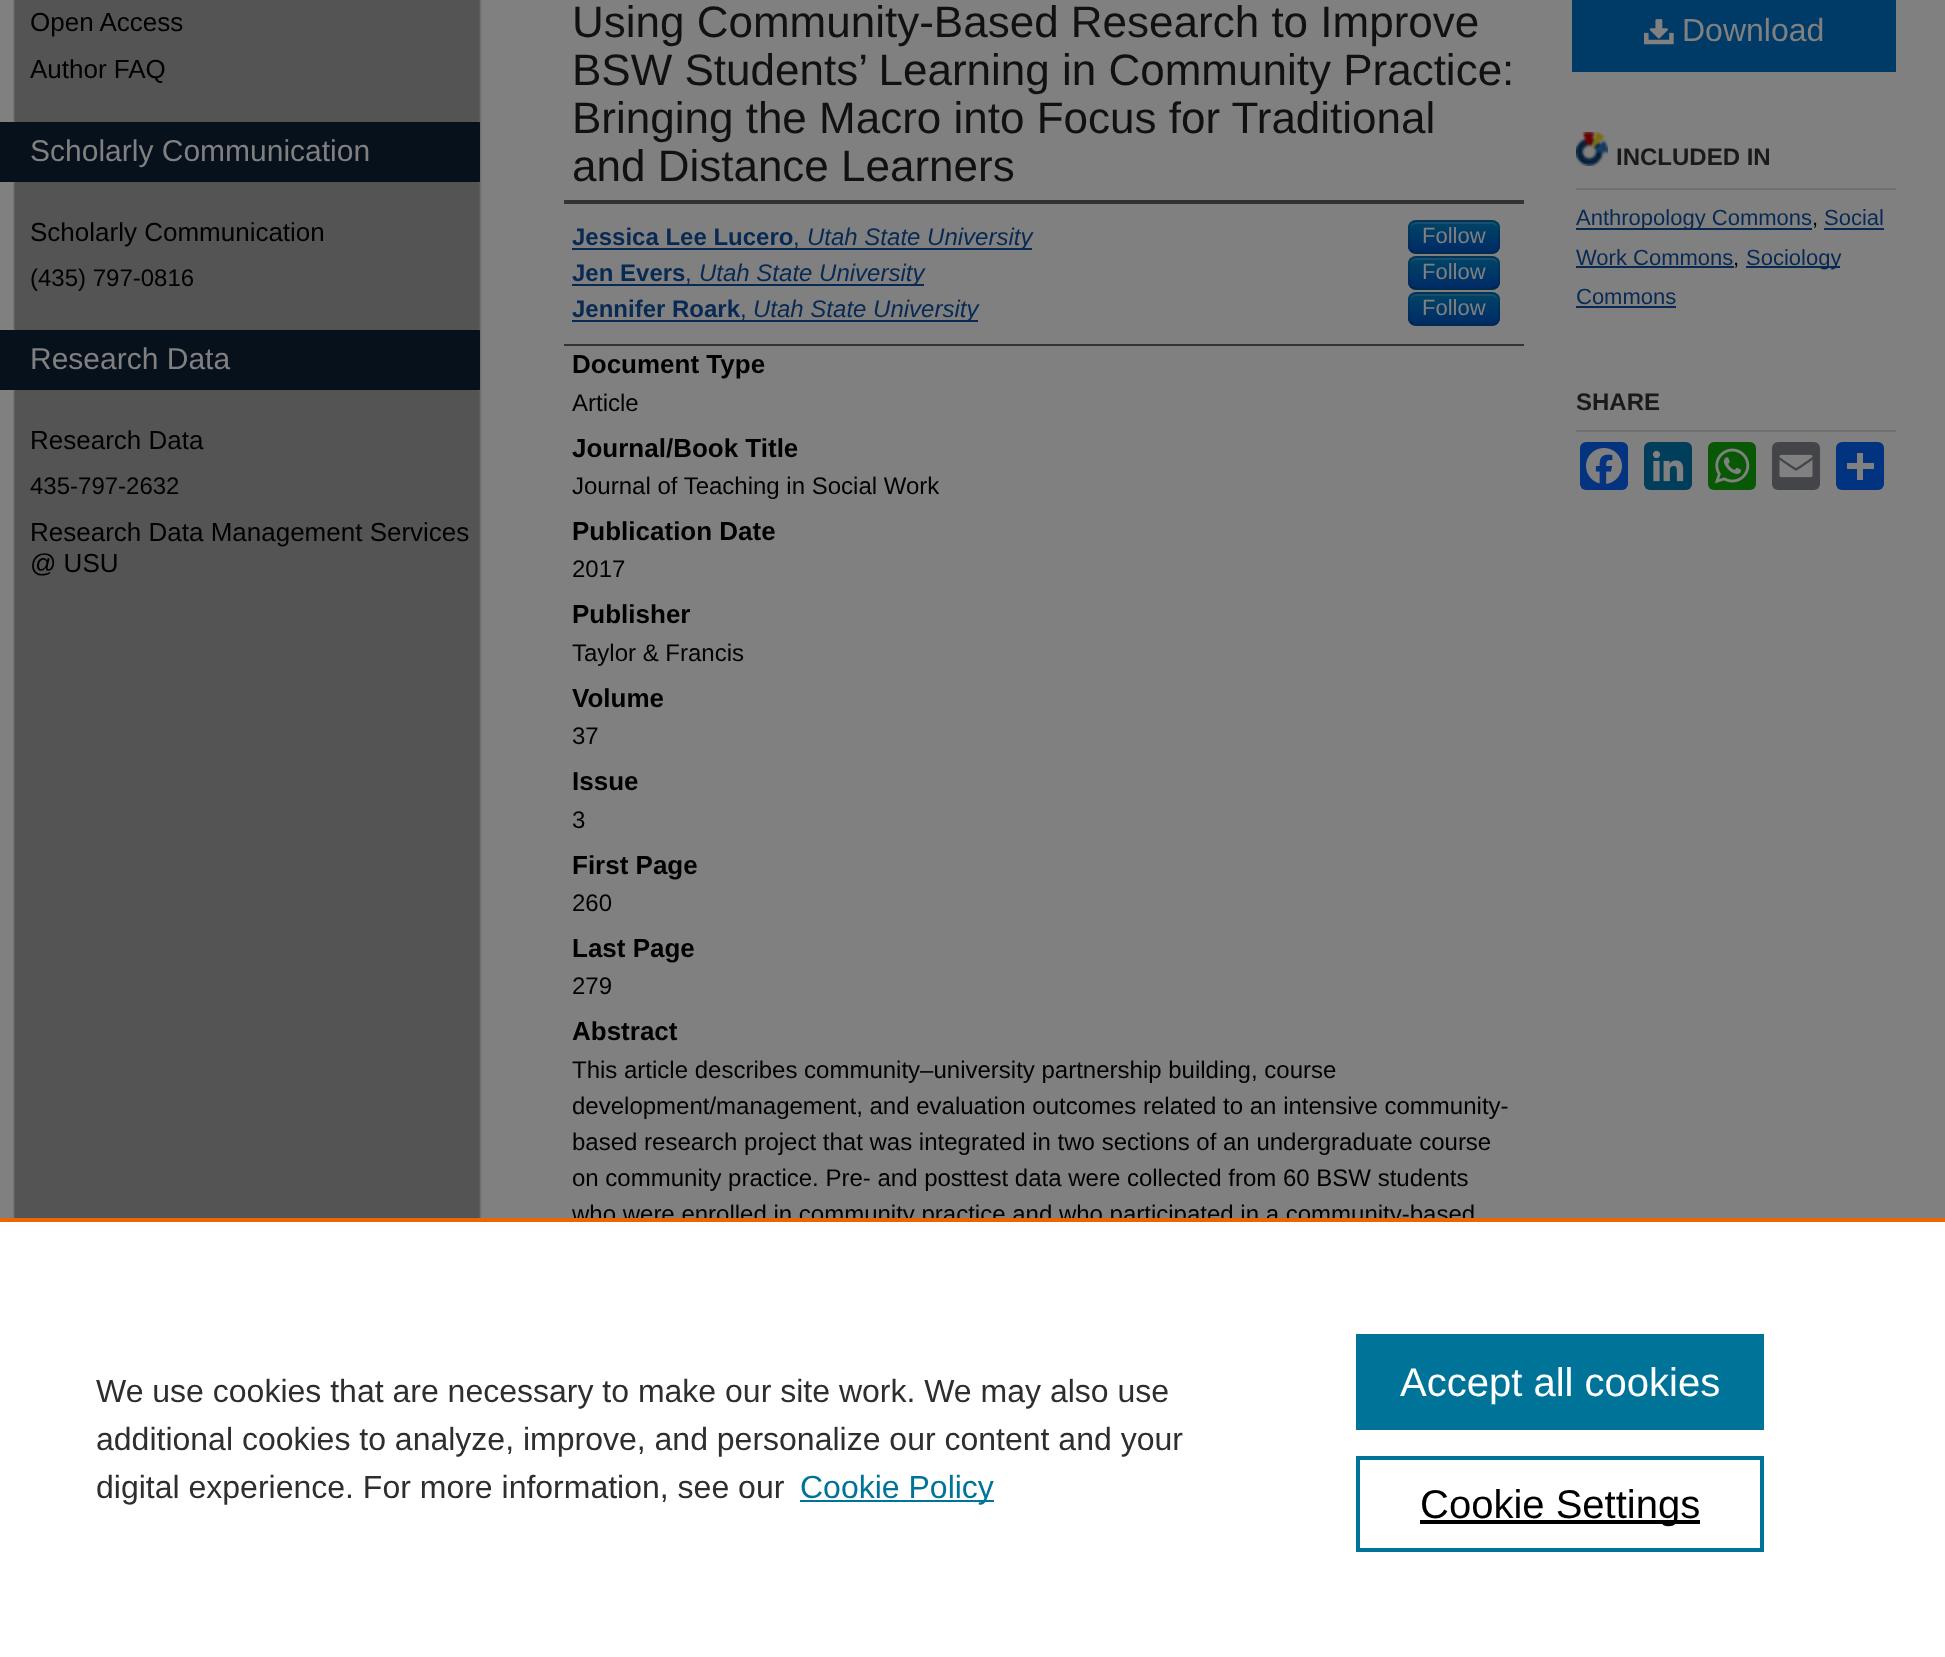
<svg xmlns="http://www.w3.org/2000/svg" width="1945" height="1657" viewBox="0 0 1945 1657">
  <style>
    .t1 { font: 26px Liberation Sans; fill: #000; }
    .t2 { font: 30px Liberation Sans; fill: #808080; }
    .t3 { font: 24px Liberation Sans; fill: #000; }
    .t4 { font: 44px Liberation Sans; fill: #111; }
    .t5 { font: bold 24px Liberation Sans; fill: #082953; }
    .t6 { font: 24px Liberation Sans; fill: #082953; }
    .t7 { font: italic 24px Liberation Sans; fill: #082953; }
    .t8 { font: 22px Liberation Sans; fill: #808080; }
    .t9 { font: bold 26px Liberation Sans; fill: #000; }
    .t10 { font: 32px Liberation Sans; fill: #808080; }
    .t11 { font: bold 24px Liberation Sans; fill: #1a1a1a; }
    .t12 { font: 22px Liberation Sans; fill: #082953; }
    .t13 { font: 22px Liberation Sans; fill: #000; }
    .t14 { font: 32px Liberation Sans; fill: #2e2e2e; }
    .t15 { font: 32px Liberation Sans; fill: #007398; }
    .t16 { font: 40px Liberation Sans; fill: #fff; }
    .t17 { font: 40px Liberation Sans; fill: #000; }
  </style>
  <defs>
    <clipPath id="clip1"><rect x="1408" y="220" width="92" height="34" rx="8"/></clipPath>
    <linearGradient id="g1" gradientUnits="userSpaceOnUse" x1="1454" y1="222" x2="1454" y2="252"><stop offset="0" stop-color="#046"/><stop offset="1" stop-color="#002b66"/></linearGradient>
    <clipPath id="clip2"><rect x="1408" y="256" width="92" height="34" rx="8"/></clipPath>
    <linearGradient id="g2" gradientUnits="userSpaceOnUse" x1="1454" y1="258" x2="1454" y2="288"><stop offset="0" stop-color="#046"/><stop offset="1" stop-color="#002b66"/></linearGradient>
    <clipPath id="clip3"><rect x="1408" y="292" width="92" height="34" rx="8"/></clipPath>
    <linearGradient id="g3" gradientUnits="userSpaceOnUse" x1="1454" y1="294" x2="1454" y2="324"><stop offset="0" stop-color="#046"/><stop offset="1" stop-color="#002b66"/></linearGradient>
  </defs>
  <rect width="100%" height="100%" fill="#808080"/>
  <image x="13" y="0" width="469" height="1218" href="images/1.png"/>
  <text x="30" y="31" class="t1">Open Access</text>
  <text x="30" y="78" class="t1">Author FAQ</text>
  <rect x="0" y="122" width="480" height="60" fill="#06111c"/>
  <text x="30" y="161" class="t2">Scholarly Communication</text>
  <text x="30" y="241" class="t1">Scholarly Communication</text>
  <text x="30" y="286" class="t3">(435) 797-0816</text>
  <rect x="0" y="330" width="480" height="60" fill="#06111c"/>
  <text x="30" y="369" class="t2">Research Data</text>
  <text x="30" y="449" class="t1">Research Data</text>
  <text x="30" y="494" class="t3">435-797-2632</text>
  <text x="30" y="541" class="t1">Research Data Management Services</text>
  <text x="30" y="572" class="t1">@ USU</text>
  <text x="572" y="37" class="t4">Using Community-Based Research to Improve</text>
  <text x="572" y="85" class="t4">BSW Students’ Learning in Community Practice:</text>
  <text x="572" y="133" class="t4">Bringing the Macro into Focus for Traditional</text>
  <text x="572" y="181" class="t4">and Distance Learners</text>
  <rect x="564" y="200" width="960" height="4" fill="#333"/>
  <rect x="564" y="344" width="960" height="2" fill="#333"/>
  <text x="572" y="245" class="t5">Jessica Lee Lucero</text>
  <rect x="572" y="248" width="460" height="2" fill="#082953"/>
  <text x="793" y="245" class="t6">,</text>
  <text x="807" y="245" class="t7">Utah State University</text>
  <rect x="1408" y="220" width="92" height="34" rx="8" fill="#003a66"/>
  <g clip-path="url(#clip1)">
    <rect x="1408" y="222" width="92" height="30" fill="url(#g1)"/>
  </g>
  <path d="M1416 224H1492C1495 224 1498 227 1498 230C1498 219 1488 222 1479 222H1429C1420 222 1410 219 1410 230C1410 227 1413 224 1416 224Z" fill="#80808033"/>
  <path d="M1497 251C1495.5 252.5 1494 253 1492 253H1416C1414 253 1412.5 252.5 1411 251" fill="none" stroke="#00000040" stroke-width="2"/>
  <path d="M1411 251C1407.5 247.5 1409 241.5 1409 237C1409 219 1410 221 1428.5 221H1479.5C1498 221 1499 219 1499 237C1499 241.5 1500.5 247.5 1497 251" fill="none" stroke="#0000001a" stroke-width="2"/>
  <text x="1422" y="243" class="t8">Follow</text>
  <text x="572" y="281" class="t5">Jen Evers</text>
  <rect x="572" y="284" width="352" height="2" fill="#082953"/>
  <text x="685" y="281" class="t6">,</text>
  <text x="699" y="281" class="t7">Utah State University</text>
  <rect x="1408" y="256" width="92" height="34" rx="8" fill="#003a66"/>
  <g clip-path="url(#clip2)">
    <rect x="1408" y="258" width="92" height="30" fill="url(#g2)"/>
  </g>
  <path d="M1416 260H1492C1495 260 1498 263 1498 266C1498 255 1488 258 1479 258H1429C1420 258 1410 255 1410 266C1410 263 1413 260 1416 260Z" fill="#80808033"/>
  <path d="M1497 287C1495.5 288.5 1494 289 1492 289H1416C1414 289 1412.5 288.5 1411 287" fill="none" stroke="#00000040" stroke-width="2"/>
  <path d="M1411 287C1407.5 283.5 1409 277.5 1409 273C1409 255 1410 257 1428.5 257H1479.5C1498 257 1499 255 1499 273C1499 277.5 1500.5 283.5 1497 287" fill="none" stroke="#0000001a" stroke-width="2"/>
  <text x="1422" y="279" class="t8">Follow</text>
  <text x="572" y="317" class="t5">Jennifer Roark</text>
  <rect x="572" y="320" width="406" height="2" fill="#082953"/>
  <text x="740" y="317" class="t6">,</text>
  <text x="753" y="317" class="t7">Utah State University</text>
  <rect x="1408" y="292" width="92" height="34" rx="8" fill="#003a66"/>
  <g clip-path="url(#clip3)">
    <rect x="1408" y="294" width="92" height="30" fill="url(#g3)"/>
  </g>
  <path d="M1416 296H1492C1495 296 1498 299 1498 302C1498 291 1488 294 1479 294H1429C1420 294 1410 291 1410 302C1410 299 1413 296 1416 296Z" fill="#80808033"/>
  <path d="M1497 323C1495.5 324.5 1494 325 1492 325H1416C1414 325 1412.5 324.5 1411 323" fill="none" stroke="#00000040" stroke-width="2"/>
  <path d="M1411 323C1407.5 319.5 1409 313.5 1409 309C1409 291 1410 293 1428.5 293H1479.5C1498 293 1499 291 1499 309C1499 313.5 1500.5 319.5 1497 323" fill="none" stroke="#0000001a" stroke-width="2"/>
  <text x="1422" y="315" class="t8">Follow</text>
  <text x="572" y="373" class="t9">Document Type</text>
  <text x="572" y="411" class="t3">Article</text>
  <text x="572" y="457" class="t9">Journal/Book Title</text>
  <text x="572" y="494" class="t3">Journal of Teaching in Social Work</text>
  <text x="572" y="540" class="t9">Publication Date</text>
  <text x="572" y="577" class="t3">2017</text>
  <text x="572" y="623" class="t9">Publisher</text>
  <text x="572" y="661" class="t3">Taylor &amp; Francis</text>
  <text x="572" y="707" class="t9">Volume</text>
  <text x="572" y="744" class="t3">37</text>
  <text x="572" y="790" class="t9">Issue</text>
  <text x="572" y="828" class="t3">3</text>
  <text x="572" y="874" class="t9">First Page</text>
  <text x="572" y="911" class="t3">260</text>
  <text x="572" y="957" class="t9">Last Page</text>
  <text x="572" y="994" class="t3">279</text>
  <text x="572" y="1040" class="t9">Abstract</text>
  <text x="572" y="1078" class="t3">This article describes community–university partnership building, course</text>
  <text x="572" y="1114" class="t3">development/management, and evaluation outcomes related to an intensive community-</text>
  <text x="572" y="1150" class="t3">based research project that was integrated in two sections of an undergraduate course</text>
  <text x="572" y="1186" class="t3">on community practice. Pre- and posttest data were collected from 60 BSW students</text>
  <text x="572" y="1222" class="t3">who were enrolled in community practice and who participated in a community-based</text>
  <rect x="1572" y="0" width="324" height="72" fill="#003a66"/>
  <image x="1644" y="19" width="30" height="26" href="images/2.png"/>
  <text x="1682" y="41" class="t10">Download</text>
  <image x="1576" y="132" width="32" height="34" href="images/3.png"/>
  <rect x="1576" y="188" width="320" height="2" fill="#6f6f6f"/>
  <text x="1616" y="165" class="t11">INCLUDED IN</text>
  <rect x="1576" y="228" width="236" height="2" fill="#082953"/>
  <text x="1576" y="225" class="t12">Anthropology Commons</text>
  <text x="1812" y="225" class="t13">,</text>
  <text x="1824" y="225" class="t12">Social</text>
  <rect x="1824" y="228" width="60" height="2" fill="#082953"/>
  <text x="1576" y="265" class="t12">Work Commons</text>
  <rect x="1576" y="266" width="158" height="2" fill="#082953"/>
  <text x="1733" y="265" class="t13">,</text>
  <rect x="1746" y="266" width="94" height="2" fill="#082953"/>
  <text x="1746" y="265" class="t12">Sociology</text>
  <text x="1576" y="304" class="t12">Commons</text>
  <rect x="1576" y="306" width="100" height="2" fill="#082953"/>
  <rect x="1576" y="430" width="320" height="2" fill="#6f6f6f"/>
  <text x="1576" y="410" class="t11">SHARE</text>
  <rect x="1580" y="442" width="48" height="48" rx="6" fill="#043380"/>
  <image x="1586" y="448" width="36" height="36" href="images/4.png"/>
  <rect x="1644" y="442" width="48" height="48" rx="6" fill="#003e5b"/>
  <image x="1652" y="450" width="32" height="32" href="images/5.png"/>
  <rect x="1708" y="442" width="48" height="48" rx="6" fill="#095805"/>
  <image x="1714" y="448" width="36" height="36" href="images/6.png"/>
  <rect x="1772" y="442" width="48" height="48" rx="6" fill="#444548"/>
  <image x="1779" y="454" width="34" height="24" href="images/7.png"/>
  <rect x="1836" y="442" width="48" height="48" rx="6" fill="#013380"/>
  <rect x="1857" y="453" width="6" height="27" fill="#808080"/>
  <rect x="1847" y="463" width="27" height="6" fill="#808080"/>
  <rect x="0" y="1222" width="1945" height="435" fill="#fff"/>
  <rect x="0" y="1218" width="1945" height="4" fill="#eb6500"/>
  <text x="96" y="1402" class="t14">We use cookies that are necessary to make our site work. We may also use</text>
  <text x="96" y="1450" class="t14">additional cookies to analyze, improve, and personalize our content and your</text>
  <text x="96" y="1498" class="t14">digital experience. For more information, see our</text>
  <rect x="800" y="1500" width="194" height="2" fill="#007398"/>
  <text x="800" y="1498" class="t15">Cookie Policy</text>
  <rect x="1356" y="1334" width="408" height="96" fill="#007398"/>
  <text x="1400" y="1396" class="t16">Accept all cookies</text>
  <rect x="1358" y="1458" width="404" height="92" fill="none" stroke="#007398" stroke-width="4"/>
  <rect x="1420" y="1520" width="280" height="4" fill="#000"/>
  <text x="1420" y="1518" class="t17">Cookie Settings</text>
</svg>
